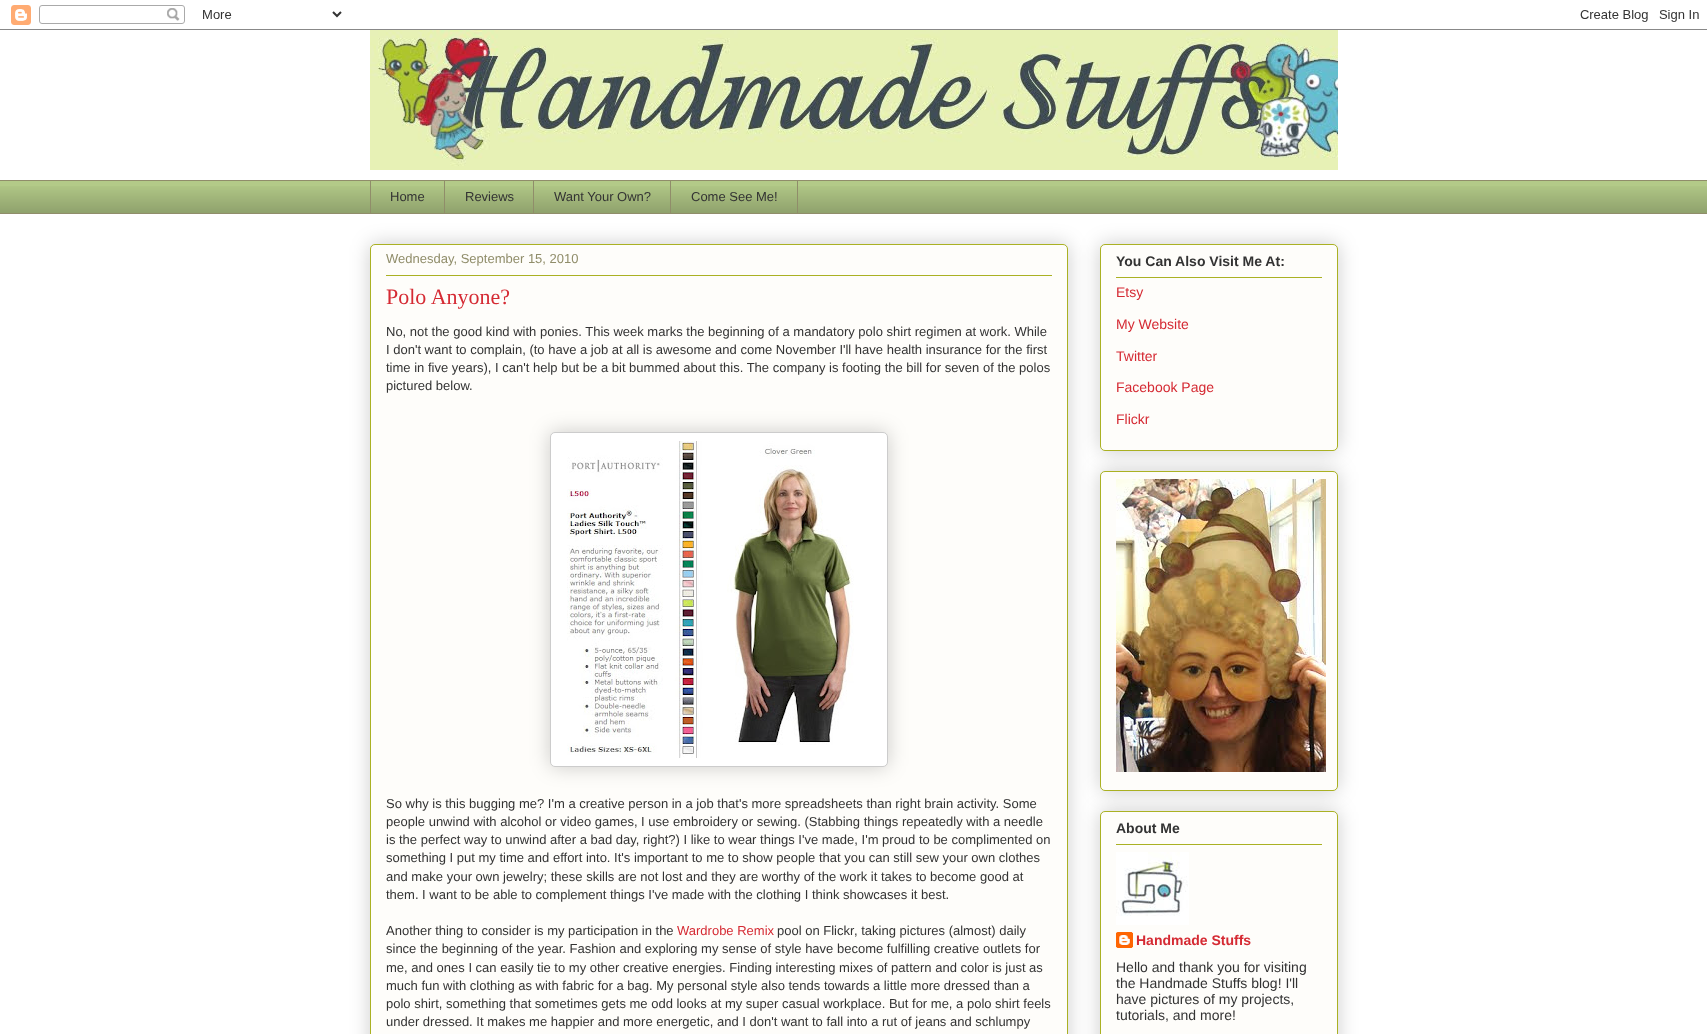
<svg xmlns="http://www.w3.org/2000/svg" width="1707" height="1034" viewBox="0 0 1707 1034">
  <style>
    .t1 { font: 13px Liberation Sans; fill: #333; }
    .t2 { font: 13px Liberation Sans; fill: #908d6a; }
    .t3 { font: 22px Liberation Serif; fill: #d52a33; }
    .t4 { font: 13px Liberation Sans; fill: #d52a33; }
    .t5 { font: bold 14px Liberation Sans; fill: #333; }
    .t6 { font: 14px Liberation Sans; fill: #d52a33; }
    .t7 { font: bold 14px Liberation Sans; fill: #d52a33; }
    .t8 { font: 14px Liberation Sans; fill: #333; }
  </style>
  <rect width="100%" height="100%" fill="#fff"/>
  <image x="0" y="5" width="1707" height="25" href="images/1.png"/>
  <image x="370" y="30" width="968" height="140" href="images/2.png"/>
  <rect x="0" y="181" width="1707" height="32" fill="#b3ca88"/>
  <image x="0" y="186" width="1707" height="27" href="images/3.png"/>
  <rect x="0" y="180" width="1707" height="1" fill="#908d6a"/>
  <rect x="370" y="180" width="1" height="34" fill="#908d6a"/>
  <text x="390" y="201" class="t1">Home</text>
  <rect x="444" y="180" width="1" height="34" fill="#908d6a"/>
  <text x="465" y="201" class="t1">Reviews</text>
  <rect x="533" y="180" width="1" height="34" fill="#908d6a"/>
  <text x="554" y="201" class="t1">Want Your Own?</text>
  <rect x="670.5" y="180.5" width="127" height="33" fill="none" stroke="#908d6a"/>
  <text x="691" y="201" class="t1">Come See Me!</text>
  <rect x="0" y="213" width="1707" height="1" fill="#908d6a"/>
  <rect x="370" y="244" width="698" height="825" rx="5" fill="#00000033" filter="blur(10px)"/>
  <rect x="370.5" y="244.5" width="697" height="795" rx="4.5" fill="#fefdfa" stroke="#aab123"/>
  <text x="386" y="263" class="t2">Wednesday, September 15, 2010</text>
  <rect x="386" y="275" width="666" height="1" fill="#aab123"/>
  <text x="386" y="304" class="t3">Polo Anyone?</text>
  <text x="386" y="336" class="t1">No, not the good kind with ponies. This week marks the beginning of a mandatory polo shirt regimen at work. While</text>
  <text x="386" y="354" class="t1">I don't want to complain, (to have a job at all is awesome and come November I'll have health insurance for the first</text>
  <text x="386" y="372" class="t1">time in five years), I can't help but be a bit bummed about this. The company is footing the bill for seven of the polos</text>
  <text x="386" y="390" class="t1">pictured below.</text>
  <rect x="550" y="432" width="338" height="335" rx="5" fill="#00000033" filter="blur(10px)"/>
  <rect x="550.5" y="432.5" width="337" height="334" rx="4.5" fill="#fff" stroke="#ccc"/>
  <image x="567" y="441" width="287" height="317" href="images/4.png"/>
  <text x="386" y="808" class="t1">So why is this bugging me? I'm a creative person in a job that's more spreadsheets than right brain activity. Some</text>
  <text x="386" y="826" class="t1">people unwind with alcohol or video games, I use embroidery or sewing. (Stabbing things repeatedly with a needle</text>
  <text x="386" y="844" class="t1">is the perfect way to unwind after a bad day, right?) I like to wear things I've made, I'm proud to be complimented on</text>
  <text x="386" y="862" class="t1">something I put my time and effort into. It's important to me to show people that you can still sew your own clothes</text>
  <text x="386" y="881" class="t1">and make your own jewelry; these skills are not lost and they are worthy of the work it takes to become good at</text>
  <text x="386" y="899" class="t1">them. I want to be able to complement things I've made with the clothing I think showcases it best.</text>
  <text x="386" y="935" class="t1">Another thing to consider is my participation in the</text>
  <text x="677" y="935" class="t4">Wardrobe Remix</text>
  <text x="777" y="935" class="t1">pool on Flickr</text>
  <text x="854" y="935" class="t1">, taking pictures (almost) daily</text>
  <text x="386" y="953" class="t1">since the beginning of the year. Fashion and exploring my sense of style have become fulfilling creative outlets for</text>
  <text x="386" y="972" class="t1">me, and ones I can easily tie to my other creative energies. Finding interesting mixes of pattern and color is just as</text>
  <text x="386" y="990" class="t1">much fun with clothing as with fabric for a bag. My personal style also tends towards a little more dressed than a</text>
  <text x="386" y="1008" class="t1">polo shirt, something that sometimes gets me odd looks at my super casual workplace. But for me, a polo shirt feels</text>
  <text x="386" y="1026" class="t1">under dressed. It makes me happier and more energetic, and I don't want to fall into a rut of jeans and schlumpy</text>
  <rect x="1100" y="244" width="238" height="207" rx="5" fill="#00000033" filter="blur(10px)"/>
  <rect x="1100.5" y="244.5" width="237" height="206" rx="4.5" fill="#fefdfa" stroke="#aab123"/>
  <text x="1116" y="266" class="t5">You Can Also Visit Me At:</text>
  <rect x="1116" y="277" width="206" height="1" fill="#aab123"/>
  <text x="1116" y="297" class="t6">Etsy</text>
  <text x="1116" y="329" class="t6">My Website</text>
  <text x="1116" y="361" class="t6">Twitter</text>
  <text x="1116" y="392" class="t6">Facebook Page</text>
  <text x="1116" y="424" class="t6">Flickr</text>
  <rect x="1100" y="471" width="238" height="320" rx="5" fill="#00000033" filter="blur(10px)"/>
  <rect x="1100.5" y="471.5" width="237" height="319" rx="4.5" fill="#fefdfa" stroke="#aab123"/>
  <image x="1116" y="479" width="210" height="293" href="images/5.png"/>
  <rect x="1100" y="811" width="238" height="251" rx="5" fill="#00000033" filter="blur(10px)"/>
  <rect x="1100.5" y="811.5" width="237" height="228" rx="4.5" fill="#fefdfa" stroke="#aab123"/>
  <text x="1116" y="833" class="t5">About Me</text>
  <rect x="1116" y="844" width="206" height="1" fill="#aab123"/>
  <image x="1116" y="852" width="73" height="73" href="images/6.png"/>
  <image x="1116" y="932" width="17" height="16" href="images/7.png"/>
  <text x="1136" y="945" class="t7">Handmade Stuffs</text>
  <text x="1116" y="972" class="t8">Hello and thank you for visiting</text>
  <text x="1116" y="988" class="t8">the Handmade Stuffs blog! I'll</text>
  <text x="1116" y="1004" class="t8">have pictures of my projects,</text>
  <text x="1116" y="1020" class="t8">tutorials, and more!</text>
</svg>
